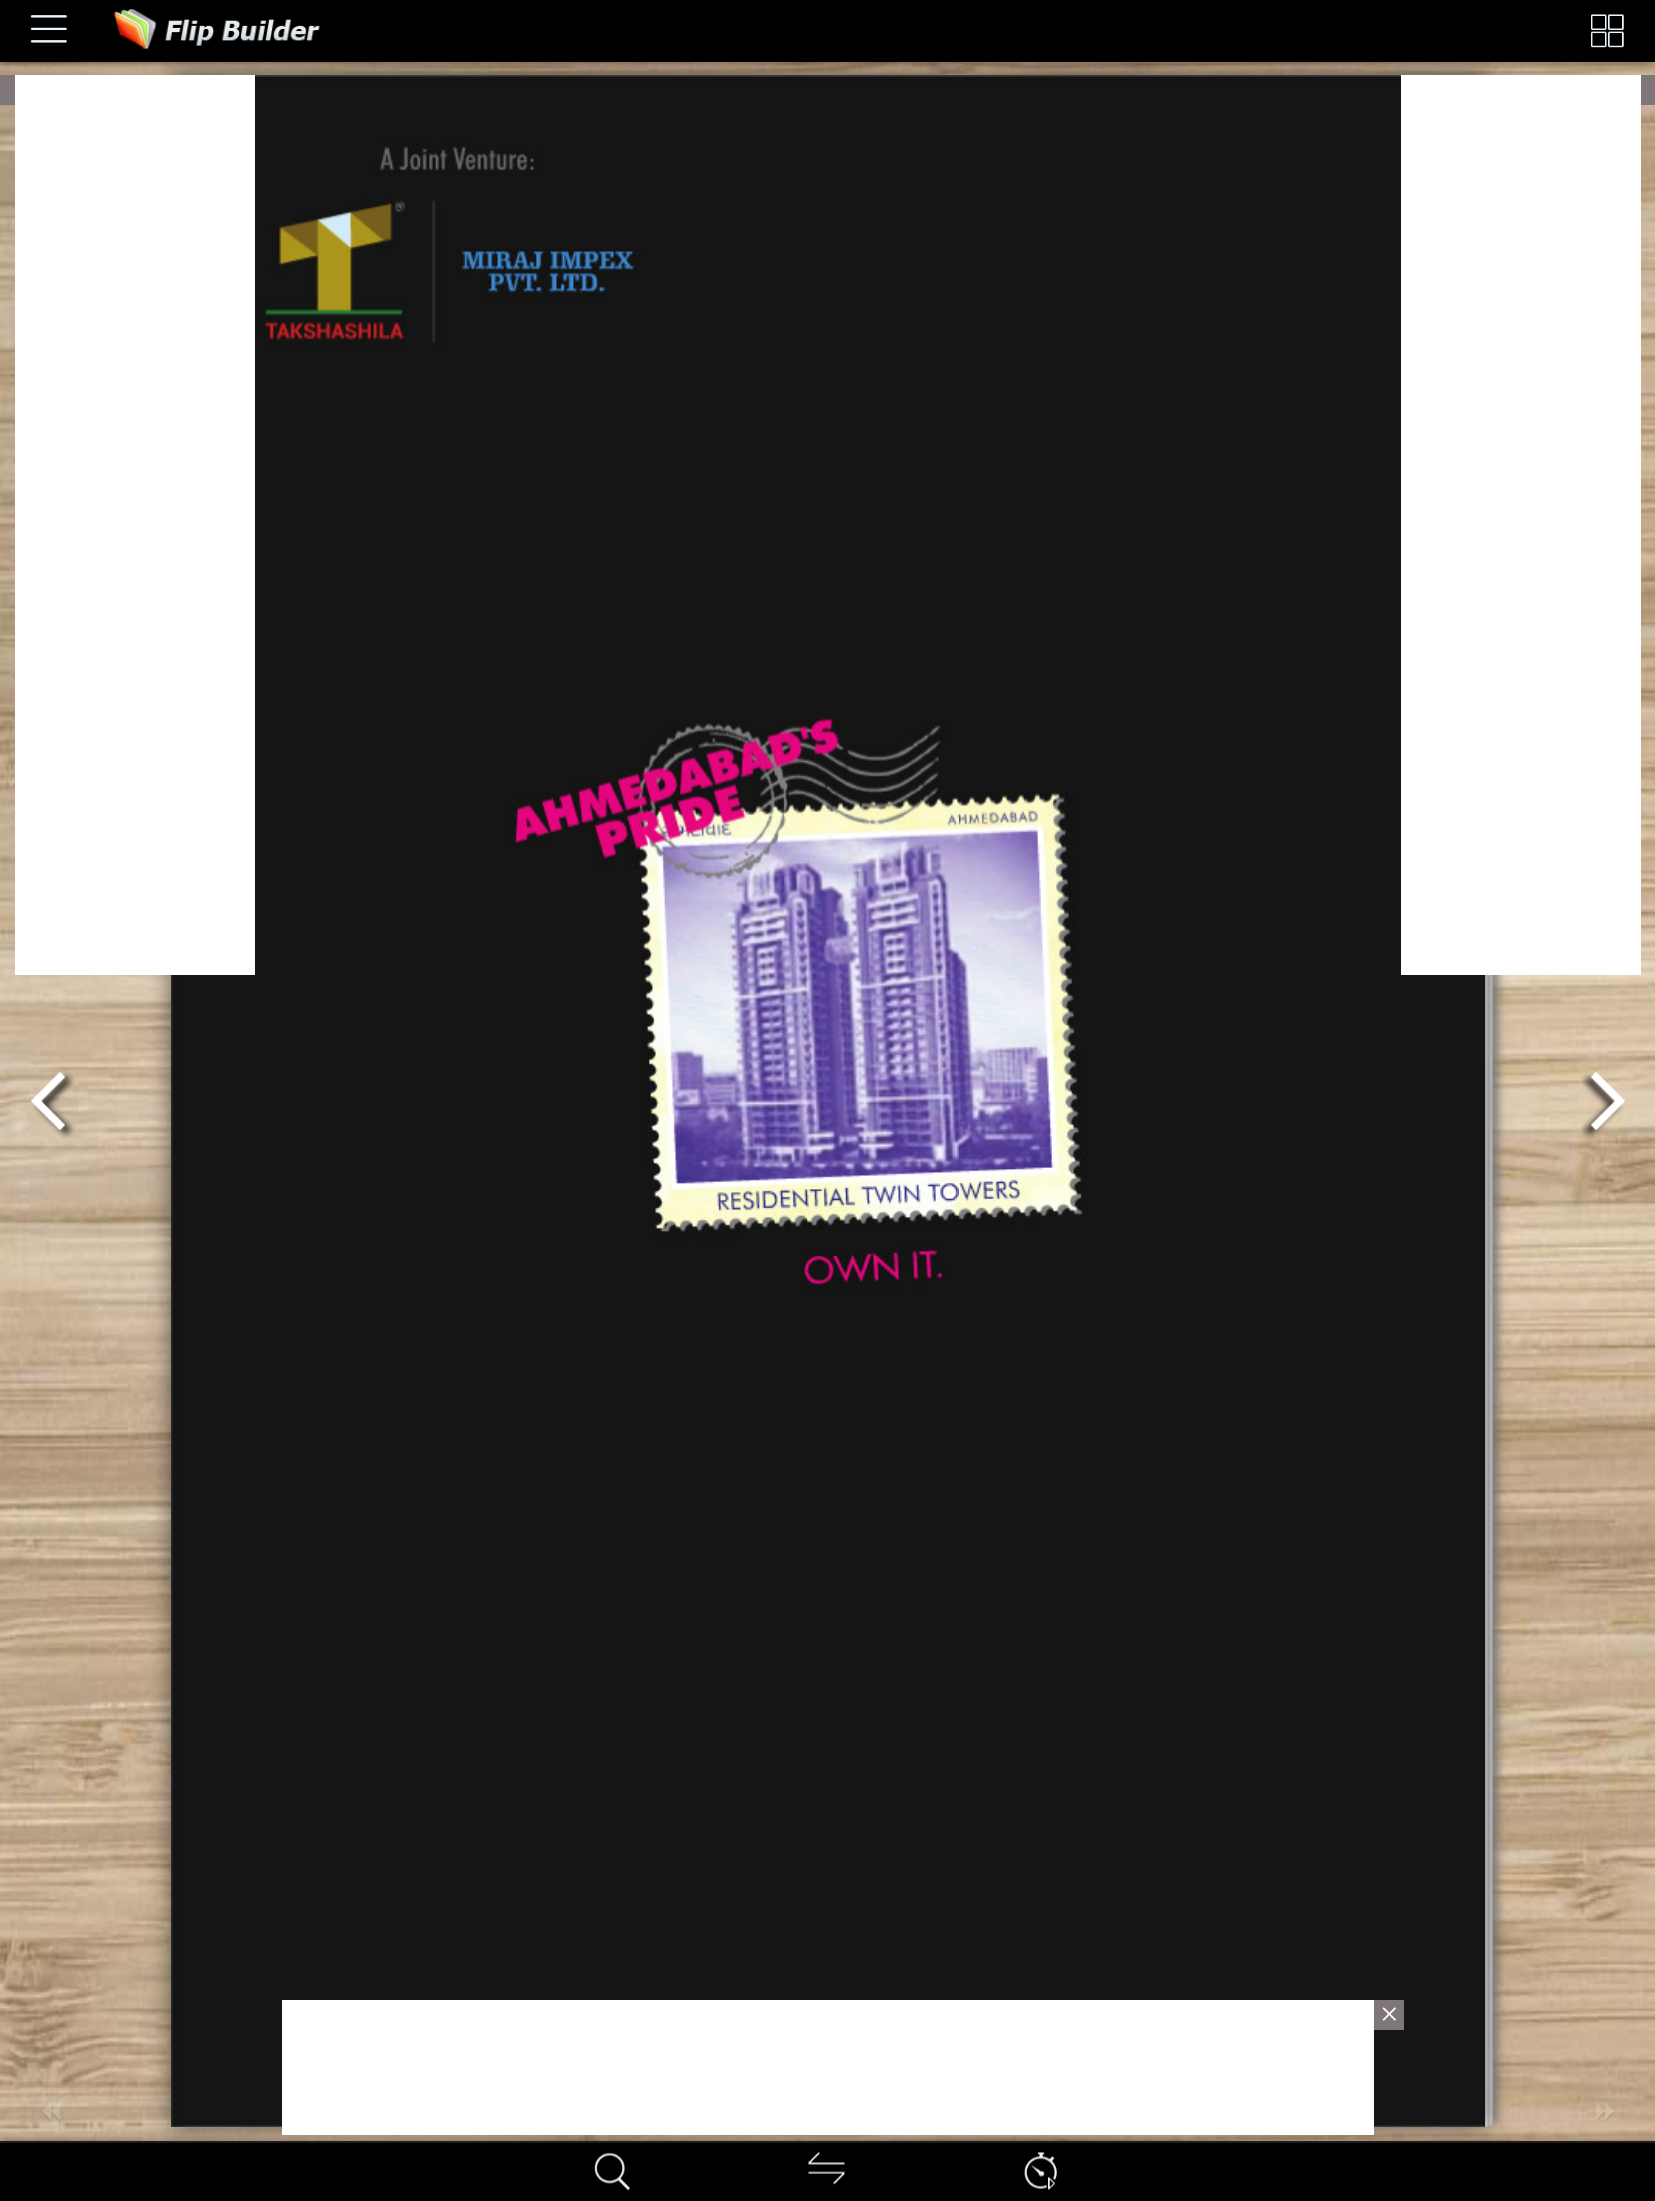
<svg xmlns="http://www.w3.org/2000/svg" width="1655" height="2201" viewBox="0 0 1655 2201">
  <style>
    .t1 { font: 33px Liberation Serif; fill: #fff; }
  </style>
  <defs>
    <linearGradient id="g1" gradientUnits="userSpaceOnUse" x1="171" y1="1101" x2="188" y2="1101"><stop offset="0" stop-color="#141414" stop-opacity="0.5"/><stop offset="1" stop-color="#141414" stop-opacity="0"/></linearGradient>
  </defs>
  <rect width="100%" height="100%" fill="#fff"/>
  <image x="0" y="62" width="1655" height="2079" href="images/9.png"/>
  <rect x="0" y="0" width="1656" height="62" fill="#28000080" filter="blur(4px)"/>
  <rect x="1488" y="80" width="11" height="2043" fill="#7d7d7db3" filter="blur(3.5px)"/>
  <image x="1485" y="975" width="8" height="1077" href="images/6.png"/>
  <image x="1484" y="2052" width="9" height="75" href="images/7.png"/>
  <rect x="171" y="75" width="1314" height="2052" fill="#282828b3" filter="blur(11px)"/>
  <rect x="0" y="0" width="1655" height="62" fill="#000"/>
  <image x="30" y="15" width="37" height="28" href="images/1.png"/>
  <image x="114" y="9" width="206" height="40" href="images/2.png"/>
  <image x="1591" y="14" width="33" height="34" href="images/3.png"/>
  <image x="171" y="2125" width="1314" height="2" href="images/5.png"/>
  <image x="171" y="2125" width="1314" height="2" href="images/8.png"/>
  <image x="171" y="75" width="1314" height="2052" href="images/4.png"/>
  <rect x="171" y="975" width="15" height="1152" fill="url(#g1)"/>
  <image x="31" y="1072" width="44" height="67" href="images/10.png"/>
  <image x="1581" y="1072" width="44" height="67" href="images/11.png"/>
  <image x="42" y="2103" width="19" height="19" href="images/12.png"/>
  <image x="1596" y="2103" width="19" height="18" href="images/13.png"/>
  <rect x="0" y="2141" width="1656" height="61" fill="#28000080" filter="blur(4px)"/>
  <rect x="0" y="2143" width="1655" height="58" fill="#000"/>
  <rect x="0" y="2141" width="1655" height="2" fill="#1e1e1e"/>
  <image x="594" y="2152" width="36" height="39" href="images/14.png"/>
  <image x="808" y="2152" width="37" height="33" href="images/15.png"/>
  <image x="1024" y="2152" width="33" height="38" href="images/16.png"/>
  <rect x="15" y="75" width="240" height="900" fill="#fff"/>
  <rect x="0" y="75" width="15" height="30" fill="#7f7777"/>
  <rect x="1401" y="75" width="240" height="900" fill="#fff"/>
  <rect x="1641" y="75" width="14" height="30" fill="#7f7777"/>
  <rect x="282" y="2000" width="1092" height="135" fill="#fff"/>
  <rect x="1374" y="2000" width="30" height="30" fill="#7f7777"/>
  <text x="1380" y="2025" class="t1">×</text>
</svg>
